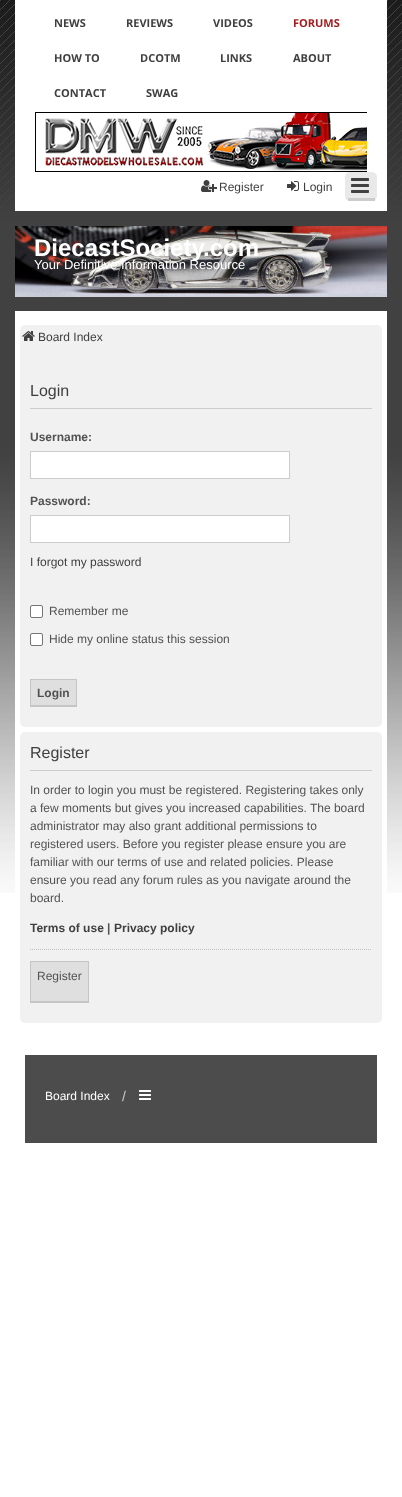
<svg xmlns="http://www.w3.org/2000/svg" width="402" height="1497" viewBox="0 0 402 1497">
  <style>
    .t1 { font: bold 11px Open Sans; fill: #3f3f3f; }
    .t2 { font: bold 11px Open Sans; fill: #a31f1f; }
    .t3 { font: 12px Liberation Sans; fill: #3f3f3f; }
    .t4 { font: bold 24px Liberation Sans; fill: #fff; }
    .t5 { font: 13px Liberation Sans; fill: #fff; }
    .t6 { font: 16px Liberation Sans; fill: #3f3f3f; }
    .t7 { font: bold 12px Liberation Sans; fill: #525252; }
    .t8 { font: 12px Liberation Sans; fill: #525252; }
    .t9 { font: bold 12px Liberation Sans; fill: #3f3f3f; }
    .t10 { font: 12px Liberation Sans; fill: #fff; }
    .t11 { font: 14px Liberation Sans; fill: #cacaca; }
  </style>
  <rect width="100%" height="100%" fill="#fff"/>
  <image x="0" y="0" width="402" height="893" href="images/1.png"/>
  <rect x="15" y="0" width="372" height="211" fill="#fff"/>
  <text x="54" y="27" class="t1">NEWS</text>
  <text x="126" y="27" class="t1">REVIEWS</text>
  <text x="213" y="27" class="t1">VIDEOS</text>
  <text x="293" y="27" class="t2">FORUMS</text>
  <text x="54" y="62" class="t1">HOW TO</text>
  <text x="140" y="62" class="t1">DCOTM</text>
  <text x="220" y="62" class="t1">LINKS</text>
  <text x="293" y="62" class="t1">ABOUT</text>
  <text x="54" y="97" class="t1">CONTACT</text>
  <text x="146" y="97" class="t1">SWAG</text>
  <image x="35" y="112" width="332" height="60" href="images/2.png"/>
  <image x="201" y="180" width="16" height="12" href="images/3.png"/>
  <text x="219" y="191" class="t3">Register</text>
  <image x="287" y="181" width="12" height="10" href="images/4.png"/>
  <text x="303" y="191" class="t3">Login</text>
  <rect x="345" y="172" width="32" height="29" rx="5" fill="#e9e9e9"/>
  <rect x="348" y="198" width="27" height="3" fill="#ccc"/>
  <image x="351" y="178" width="18" height="15" href="images/5.png"/>
  <image x="15" y="226" width="372" height="71" href="images/6.png"/>
  <text x="34" y="256" class="t4">DiecastSociety.com</text>
  <text x="34" y="269" class="t5">Your Definitive Information Resource</text>
  <rect x="15" y="311" width="372" height="582" fill="#fff"/>
  <rect x="20" y="325" width="362" height="402" rx="5" fill="#f1f1f1"/>
  <image x="22" y="331" width="13" height="10" href="images/7.png"/>
  <text x="38" y="341" class="t3">Board Index</text>
  <rect x="30" y="408" width="342" height="1" fill="#ccc"/>
  <text x="30" y="396" class="t6">Login</text>
  <text x="30" y="441" class="t7">Username:</text>
  <rect x="30.5" y="451.5" width="259" height="27" fill="#fff" stroke="#ccc"/>
  <text x="30" y="505" class="t7">Password:</text>
  <rect x="30.5" y="515.5" width="259" height="27" fill="#fff" stroke="#ccc"/>
  <text x="30" y="566" class="t3">I forgot my password</text>
  <rect x="30.5" y="605.5" width="12" height="12" rx="1.5" fill="#fff" stroke="#767676"/>
  <text x="49" y="615" class="t8">Remember me</text>
  <rect x="30.5" y="633.5" width="12" height="12" rx="1.5" fill="#fff" stroke="#767676"/>
  <text x="49" y="643" class="t8">Hide my online status this session</text>
  <rect x="31" y="680" width="45" height="25" fill="#dfdfdf"/>
  <rect x="30" y="679" width="47" height="1" fill="#c5c5c5"/>
  <rect x="76" y="679" width="1" height="28" fill="#c5c5c5"/>
  <rect x="30" y="705" width="47" height="2" fill="#c5c5c5"/>
  <rect x="30" y="679" width="1" height="28" fill="#c5c5c5"/>
  <text x="37" y="697" class="t7">Login</text>
  <rect x="20" y="732" width="362" height="291" rx="5" fill="#f1f1f1"/>
  <rect x="30" y="770" width="342" height="1" fill="#ccc"/>
  <text x="30" y="758" class="t6">Register</text>
  <text x="30" y="794" class="t8">In order to login you must be registered. Registering takes only</text>
  <text x="30" y="812" class="t8">a few moments but gives you increased capabilities. The board</text>
  <text x="30" y="830" class="t8">administrator may also grant additional permissions to</text>
  <text x="30" y="848" class="t8">registered users. Before you register please ensure you are</text>
  <text x="30" y="866" class="t8">familiar with our terms of use and related policies. Please</text>
  <text x="30" y="884" class="t8">ensure you read any forum rules as you navigate around the</text>
  <text x="30" y="902" class="t8">board.</text>
  <text x="30" y="932" class="t9">Terms of use</text>
  <text x="107" y="932" class="t7">|</text>
  <text x="114" y="932" class="t9">Privacy policy</text>
  <path d="M30 949.5H372" fill="none" stroke="#c2c2c2" stroke-dasharray="1 1"/>
  <rect x="31" y="962" width="57" height="39" fill="#dfdfdf"/>
  <rect x="30" y="961" width="59" height="1" fill="#c5c5c5"/>
  <rect x="88" y="961" width="1" height="42" fill="#c5c5c5"/>
  <rect x="30" y="1001" width="59" height="2" fill="#c5c5c5"/>
  <rect x="30" y="961" width="1" height="42" fill="#c5c5c5"/>
  <text x="37" y="980" class="t8">Register</text>
  <rect x="25" y="1055" width="352" height="88" fill="#4c4c4c"/>
  <text x="45" y="1100" class="t10">Board Index</text>
  <text x="122" y="1101" class="t11">/</text>
  <image x="139" y="1090" width="12" height="10" href="images/8.png"/>
</svg>
